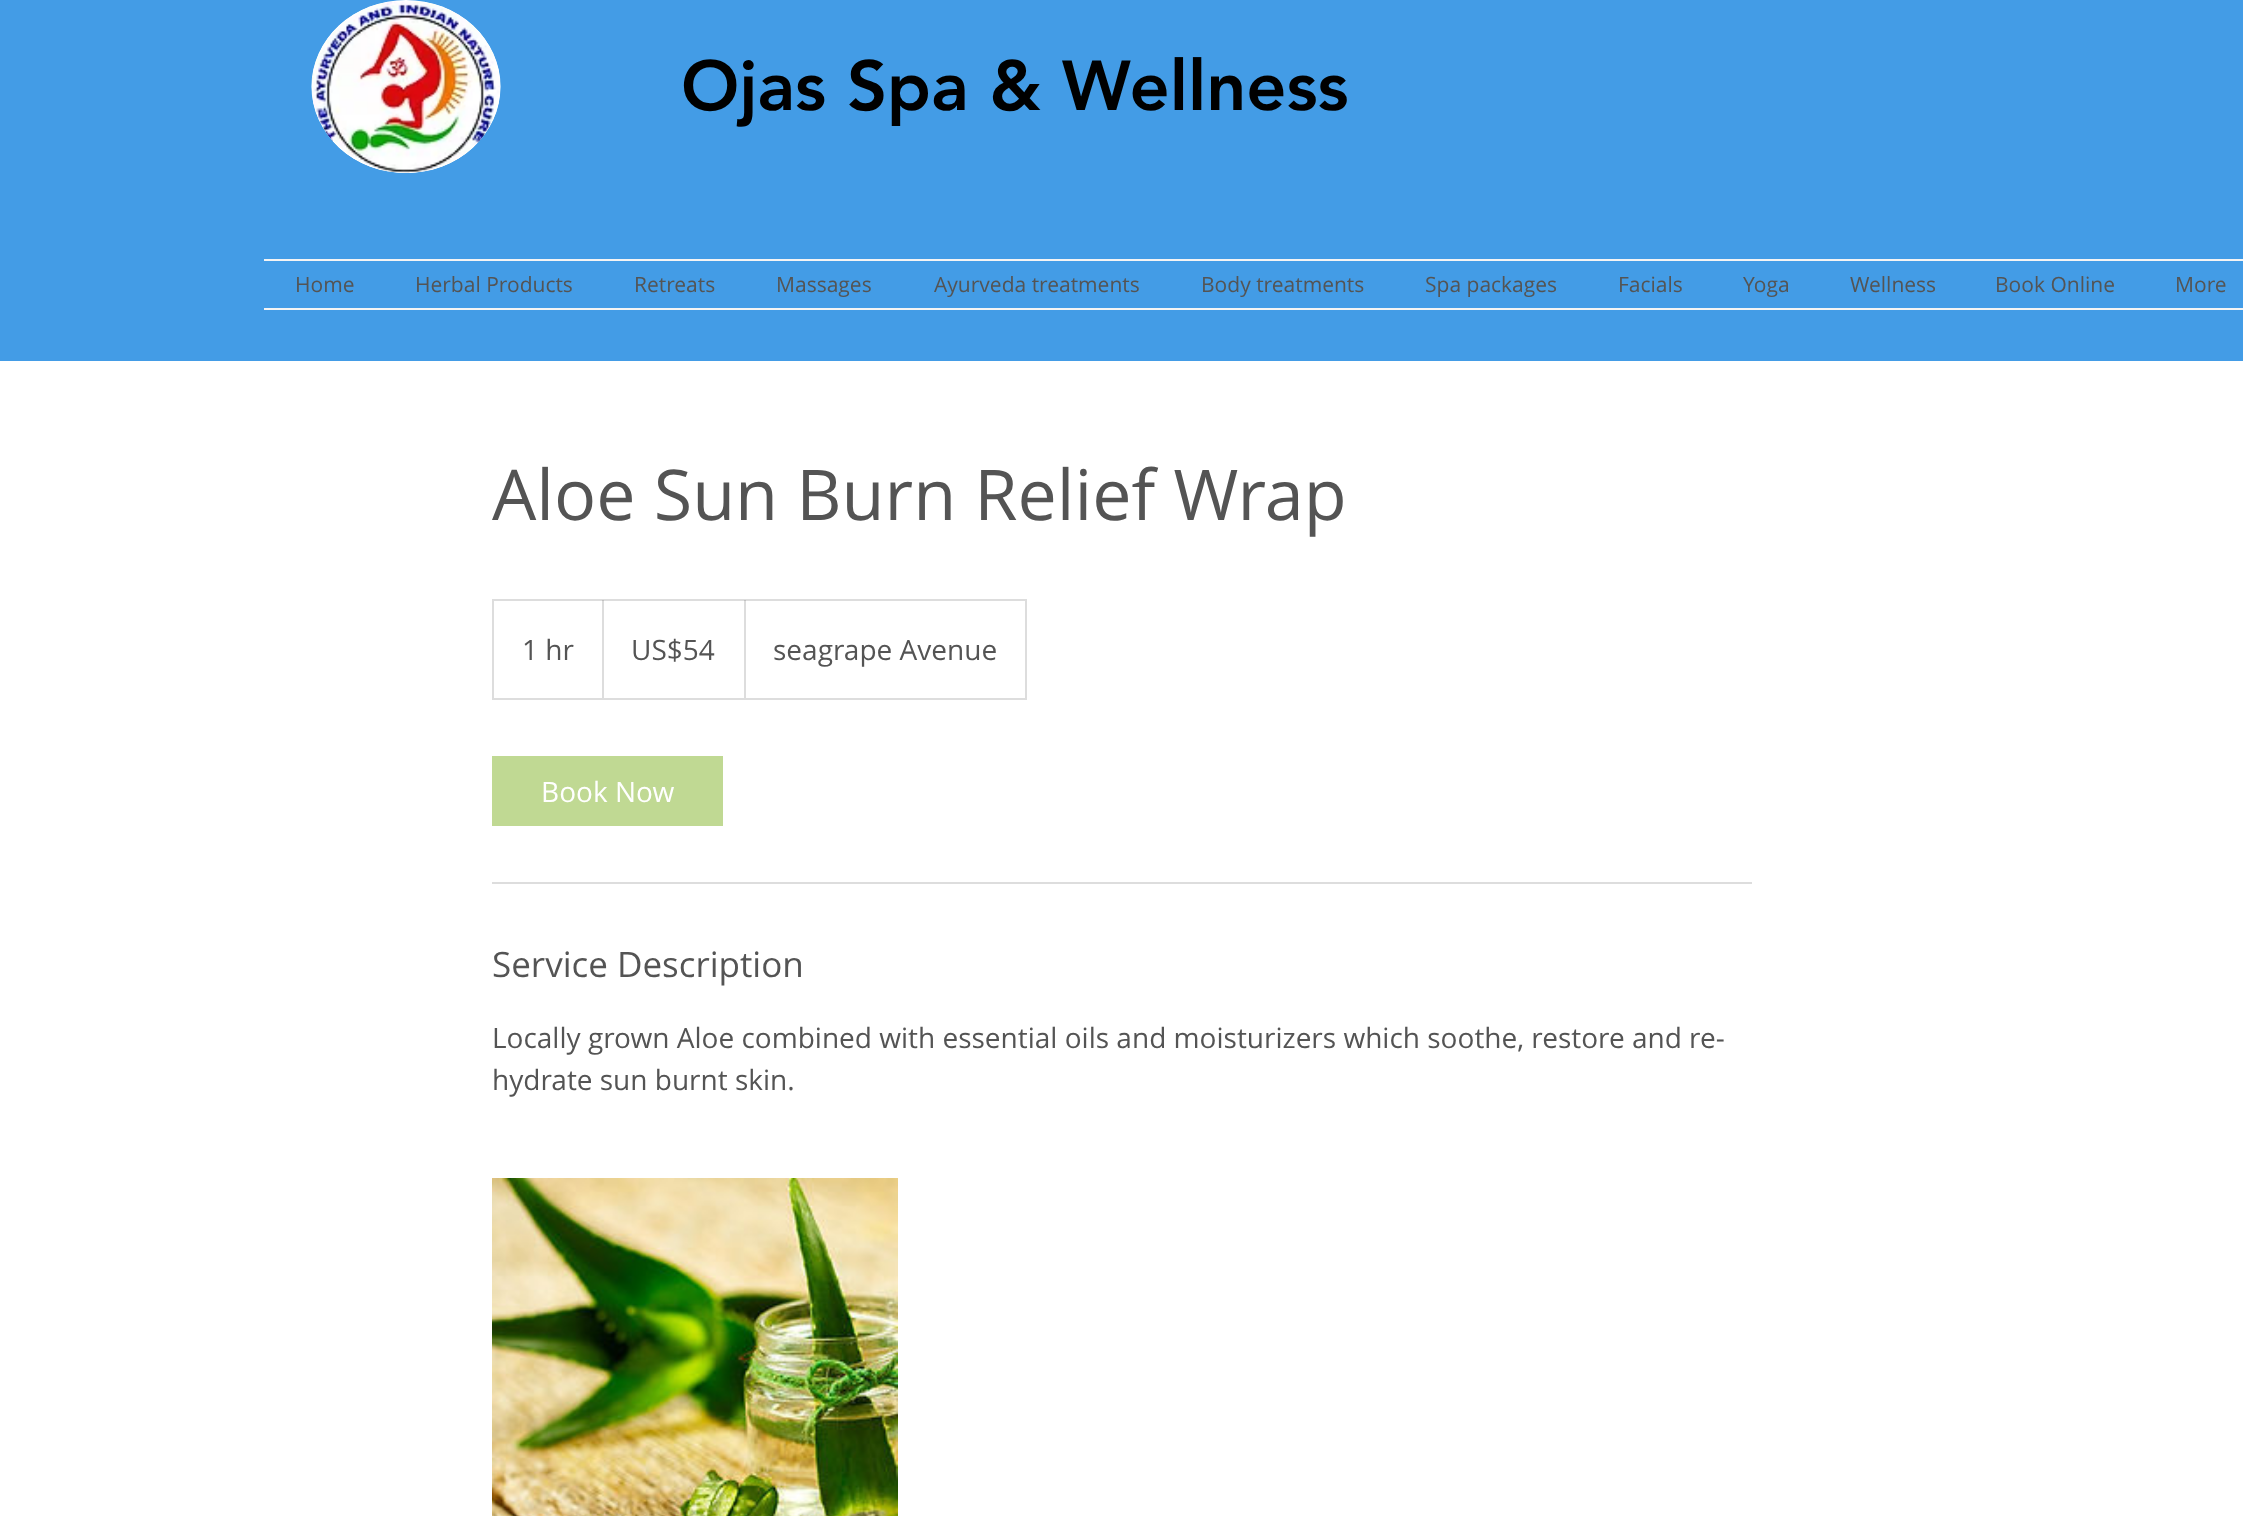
<svg xmlns="http://www.w3.org/2000/svg" width="2243" height="1516" viewBox="0 0 2243 1516">
  <style>
    .t1 { font: 900 70px 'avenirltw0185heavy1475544'; fill: #000; }
    .t2 { font: 21px Open Sans; fill: #545454; }
    .t3 { font: 70px Open Sans; fill: #545454; }
    .t4 { font: 28px Open Sans; fill: #545454; }
    .t5 { font: 28px Open Sans; fill: #fff; }
    .t6 { font: 35px Open Sans; fill: #545454; }
  </style>
  <defs>
    <clipPath id="clip1"><rect x="494" y="600" width="532" height="98"/></clipPath>
  </defs>
  <rect width="100%" height="100%" fill="#439ce6"/>
  <ellipse cx="406" cy="86.5" rx="94.5" ry="86.5" fill="#fff"/>
  <image x="311" y="1" width="190" height="172" href="images/1.png"/>
  <text x="681" y="110" class="t1">Ojas Spa &amp; Wellness</text>
  <rect x="264" y="259" width="1979" height="2" fill="#f4f4f4"/>
  <rect x="264" y="308" width="1979" height="2" fill="#f4f4f4"/>
  <text x="295" y="292" class="t2">Home</text>
  <text x="415" y="292" class="t2">Herbal Products</text>
  <text x="634" y="292" class="t2">Retreats</text>
  <text x="776" y="292" class="t2">Massages</text>
  <text x="934" y="292" class="t2">Ayurveda treatments</text>
  <text x="1201" y="292" class="t2">Body treatments</text>
  <text x="1425" y="292" class="t2">Spa packages</text>
  <text x="1618" y="292" class="t2">Facials</text>
  <text x="1743" y="292" class="t2">Yoga</text>
  <text x="1850" y="292" class="t2">Wellness</text>
  <text x="1995" y="292" class="t2">Book Online</text>
  <text x="2175" y="292" class="t2">More</text>
  <rect x="0" y="361" width="2243" height="1155" fill="#fff"/>
  <text x="492" y="520" class="t3">Aloe Sun Burn Relief Wrap</text>
  <rect x="493" y="600" width="533" height="99" fill="none" stroke="#ddd" stroke-width="2"/>
  <text x="522" y="660" class="t4">1 hr</text>
  <g clip-path="url(#clip1)">
    <path d="M602 698V598L604 600V698Z" fill="#54545433"/>
  </g>
  <text x="631" y="660" class="t4">US$54</text>
  <g clip-path="url(#clip1)">
    <path d="M744 698V598L746 600V698Z" fill="#54545433"/>
  </g>
  <text x="773" y="660" class="t4">seagrape Avenue</text>
  <rect x="492" y="756" width="231" height="70" fill="#c0d993"/>
  <text x="541" y="802" class="t5">Book Now</text>
  <rect x="492" y="882" width="1260" height="2" fill="#ddd"/>
  <text x="492" y="977" class="t6">Service Description</text>
  <text x="492" y="1048" class="t4">Locally grown Aloe combined with essential oils and moisturizers which soothe, restore and re-</text>
  <text x="492" y="1090" class="t4">hydrate sun burnt skin.</text>
  <image x="492" y="1178" width="406" height="338" href="images/2.png"/>
</svg>
